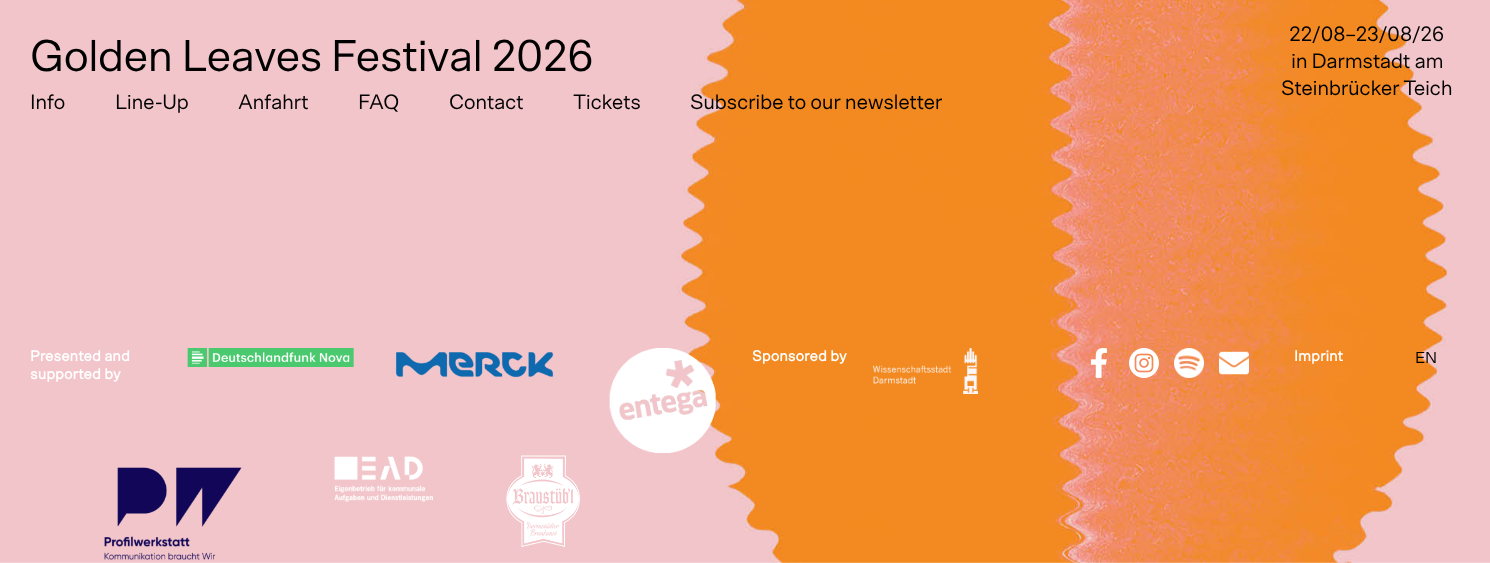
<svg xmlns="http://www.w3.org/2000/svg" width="1490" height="563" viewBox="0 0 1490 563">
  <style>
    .t1 { font: 44.75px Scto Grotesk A; letter-spacing: -0.9px; fill: #000; }
    .t2 { font: 20.9px Scto Grotesk A; letter-spacing: -0.4px; fill: #000; }
    .t3 { font: bold 15px Scto Grotesk A; fill: #fff; }
    .t4 { font: 16px Scto Grotesk A; letter-spacing: -0.4px; fill: #000; }
  </style>
  <rect width="100%" height="100%" fill="#fff"/>
  <image x="0" y="0" width="1490" height="563" href="images/1.png"/>
  <text x="30" y="71" class="t1">Golden Leaves Festival 2026</text>
  <text x="1289" y="41" class="t2">22/08–23/08/26</text>
  <text x="1291" y="68" class="t2">in Darmstadt am</text>
  <text x="1281" y="95" class="t2">Steinbrücker Teich</text>
  <text x="30" y="109" class="t2">Info</text>
  <text x="115" y="109" class="t2">Line-Up</text>
  <text x="238" y="109" class="t2">Anfahrt</text>
  <text x="358" y="109" class="t2">FAQ</text>
  <text x="449" y="109" class="t2">Contact</text>
  <text x="573" y="109" class="t2">Tickets</text>
  <text x="690" y="109" class="t2">Subscribe to our newsletter</text>
  <text x="30" y="361" class="t3">Presented and</text>
  <text x="30" y="379" class="t3">supported by</text>
  <image x="187" y="348" width="167" height="19" href="images/2.png"/>
  <image x="395" y="352" width="159" height="26" href="images/3.png"/>
  <image x="609" y="348" width="107" height="105" href="images/4.png"/>
  <text x="752" y="361" class="t3">Sponsored by</text>
  <image x="873" y="348" width="105" height="46" href="images/5.png"/>
  <image x="1091" y="348" width="16" height="30" href="images/6.png"/>
  <image x="1129" y="348" width="30" height="30" href="images/7.png"/>
  <image x="1174" y="348" width="30" height="30" href="images/8.png"/>
  <image x="1219" y="351" width="30" height="24" href="images/9.png"/>
  <text x="1294" y="361" class="t3">Imprint</text>
  <text x="1415" y="363" class="t4">EN</text>
  <image x="104" y="467" width="138" height="93" href="images/10.png"/>
  <image x="334" y="456" width="99" height="46" href="images/11.png"/>
  <image x="506" y="455" width="74" height="92" href="images/12.png"/>
</svg>
